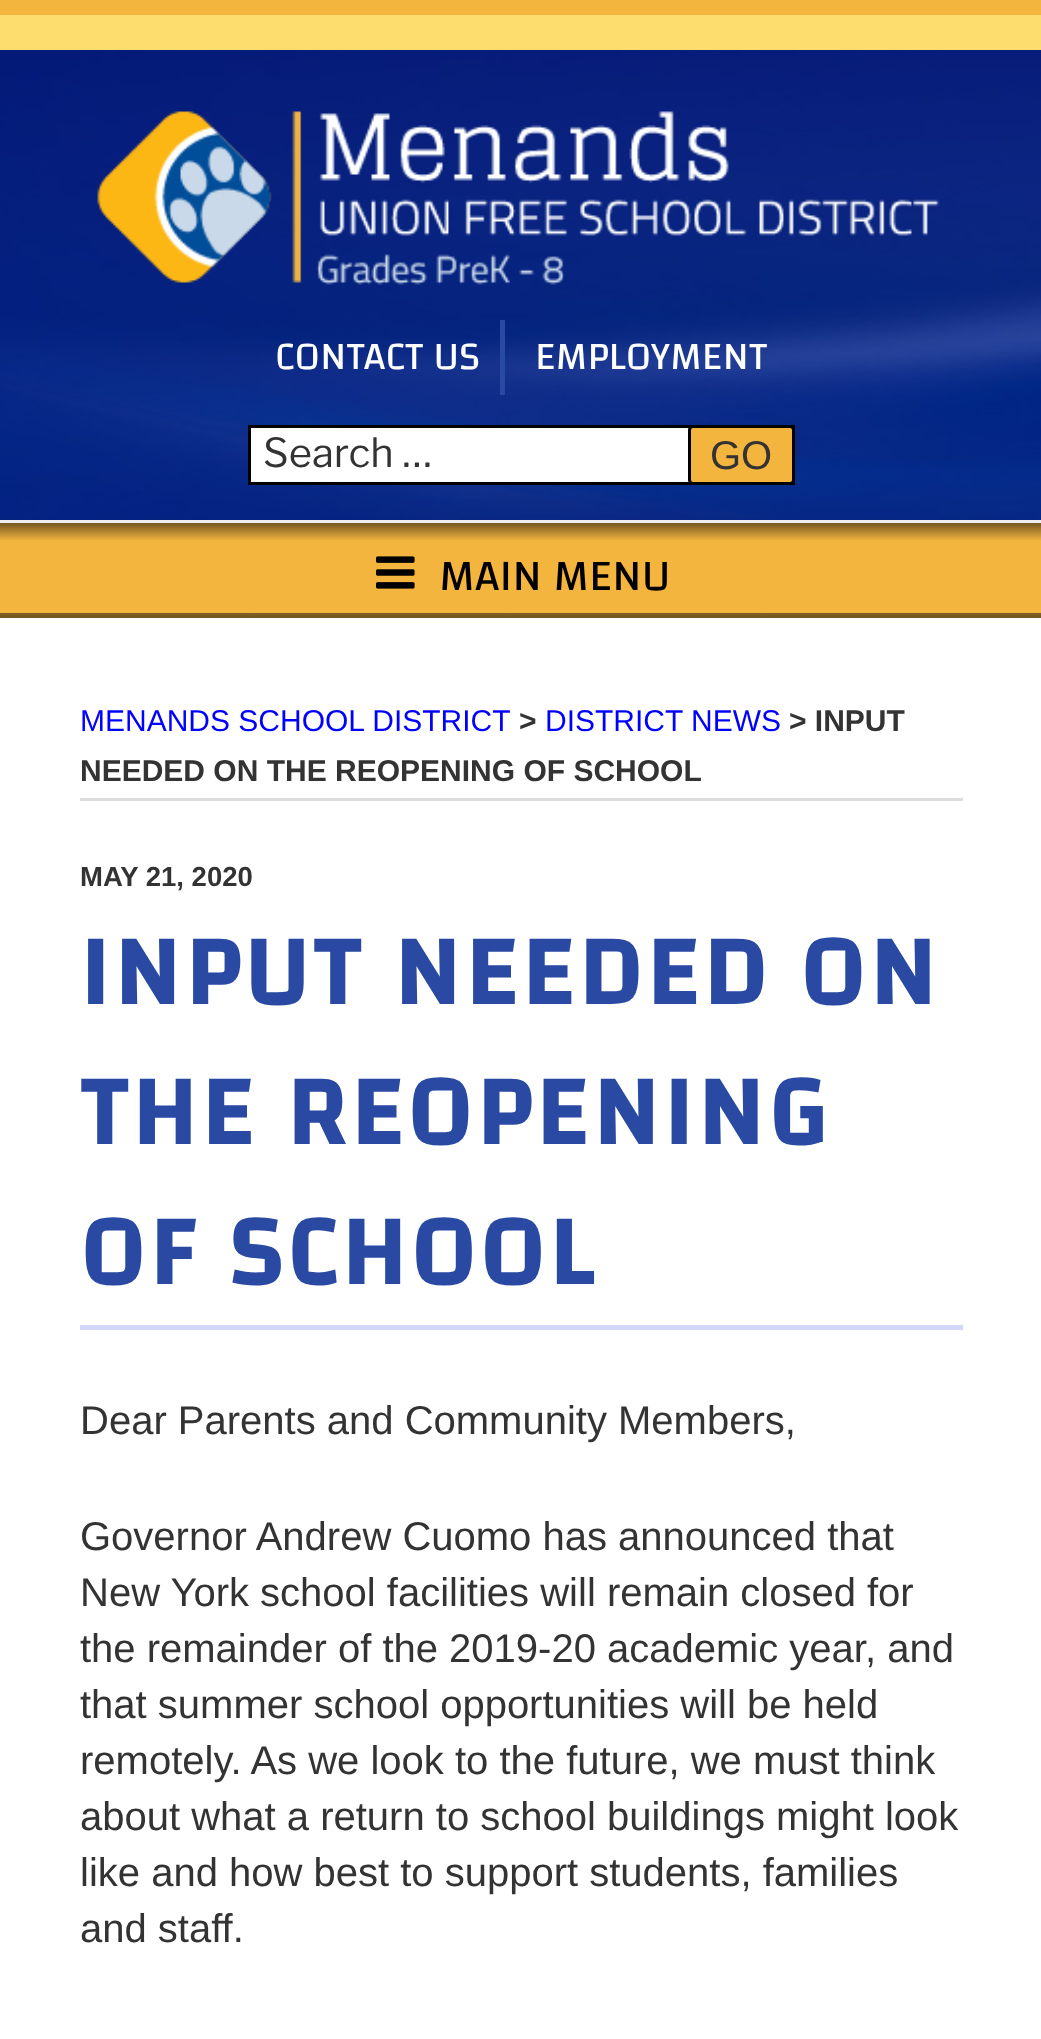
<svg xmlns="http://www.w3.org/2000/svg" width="1041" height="2039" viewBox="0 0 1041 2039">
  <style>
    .t1 { font: 40px Changa; fill: #fff; }
    .t2 { font: 100 40px Libre Franklin; fill: #333; }
    .t3 { font: 40px Liberation Sans; fill: #333; }
    .t4 { font: 45px Changa; fill: #000; }
    .t5 { font: 30px Liberation Sans; fill: #00f; }
    .t6 { font: bold 30px Liberation Sans; fill: #333; }
    .t7 { font: bold 27.5px Liberation Sans; fill: #333; }
    .t8 { font: bold 100px Changa; letter-spacing: 5px; fill: #2949a3; }
  </style>
  <defs>
    <linearGradient id="g1" gradientUnits="userSpaceOnUse" x1="65" y1="523" x2="65" y2="613"><stop offset="0" stop-color="#755822"/><stop offset="0.2" stop-color="#f4b53f"/><stop offset="1" stop-color="#f4b53f"/></linearGradient>
    <linearGradient id="g2" gradientUnits="userSpaceOnUse" x1="65" y1="613" x2="65" y2="703"><stop offset="0" stop-color="#755822"/><stop offset="0.2" stop-color="#f4b53f"/><stop offset="1" stop-color="#f4b53f"/></linearGradient>
  </defs>
  <rect width="100%" height="100%" fill="#fff"/>
  <image x="0" y="50" width="1041" height="470" href="images/1.png"/>
  <rect x="0" y="0" width="1041" height="15" fill="#f4b53f"/>
  <rect x="0" y="15" width="1041" height="35" fill="#fddd6e"/>
  <image x="97" y="111" width="843" height="174" href="images/2.png"/>
  <text x="275" y="369" class="t1">CONTACT US</text>
  <rect x="500" y="320" width="5" height="75" fill="#2949a3"/>
  <text x="535" y="369" class="t1">EMPLOYMENT</text>
  <rect x="251" y="428" width="438" height="54" fill="#fff"/>
  <rect x="249.5" y="426.5" width="544" height="57" fill="none" stroke="#000" stroke-width="3"/>
  <text x="263" y="467" class="t2">Search …</text>
  <rect x="689.5" y="426.5" width="104" height="57" rx="3.5" fill="#f4b53f" stroke="#000" stroke-width="3"/>
  <text x="710" y="469" class="t3">GO</text>
  <rect x="0" y="523" width="1041" height="90" fill="url(#g1)"/>
  <rect x="0" y="613" width="1041" height="2" fill="url(#g2)"/>
  <rect x="0" y="520" width="1041" height="3" fill="#eee"/>
  <rect x="0" y="615" width="1041" height="3" fill="#755822"/>
  <image x="376" y="556" width="39" height="33" href="images/3.png"/>
  <text x="439" y="590" class="t4">MAIN MENU</text>
  <rect x="80" y="798" width="883" height="3" fill="#ddd"/>
  <text x="80" y="731" class="t5">MENANDS SCHOOL DISTRICT</text>
  <text x="519" y="731" class="t6">&gt;</text>
  <text x="545" y="731" class="t5">DISTRICT NEWS</text>
  <text x="789" y="731" class="t6">&gt; INPUT</text>
  <text x="80" y="781" class="t6">NEEDED ON THE REOPENING OF SCHOOL</text>
  <text x="80" y="886" class="t7">MAY 21, 2020</text>
  <rect x="80" y="1325" width="883" height="5" fill="#d2d8fd"/>
  <text x="80" y="1004" class="t8">INPUT NEEDED ON</text>
  <text x="80" y="1144" class="t8">THE REOPENING</text>
  <text x="80" y="1284" class="t8">OF SCHOOL</text>
  <text x="80" y="1434" class="t3">Dear Parents and Community Members,</text>
  <text x="80" y="1550" class="t3">Governor Andrew Cuomo has announced that</text>
  <text x="80" y="1606" class="t3">New York school facilities will remain closed for</text>
  <text x="80" y="1662" class="t3">the remainder of the 2019-20 academic year, and</text>
  <text x="80" y="1718" class="t3">that summer school opportunities will be held</text>
  <text x="80" y="1774" class="t3">remotely. As we look to the future, we must think</text>
  <text x="80" y="1830" class="t3">about what a return to school buildings might look</text>
  <text x="80" y="1886" class="t3">like and how best to support students, families</text>
  <text x="80" y="1942" class="t3">and staff.</text>
</svg>
